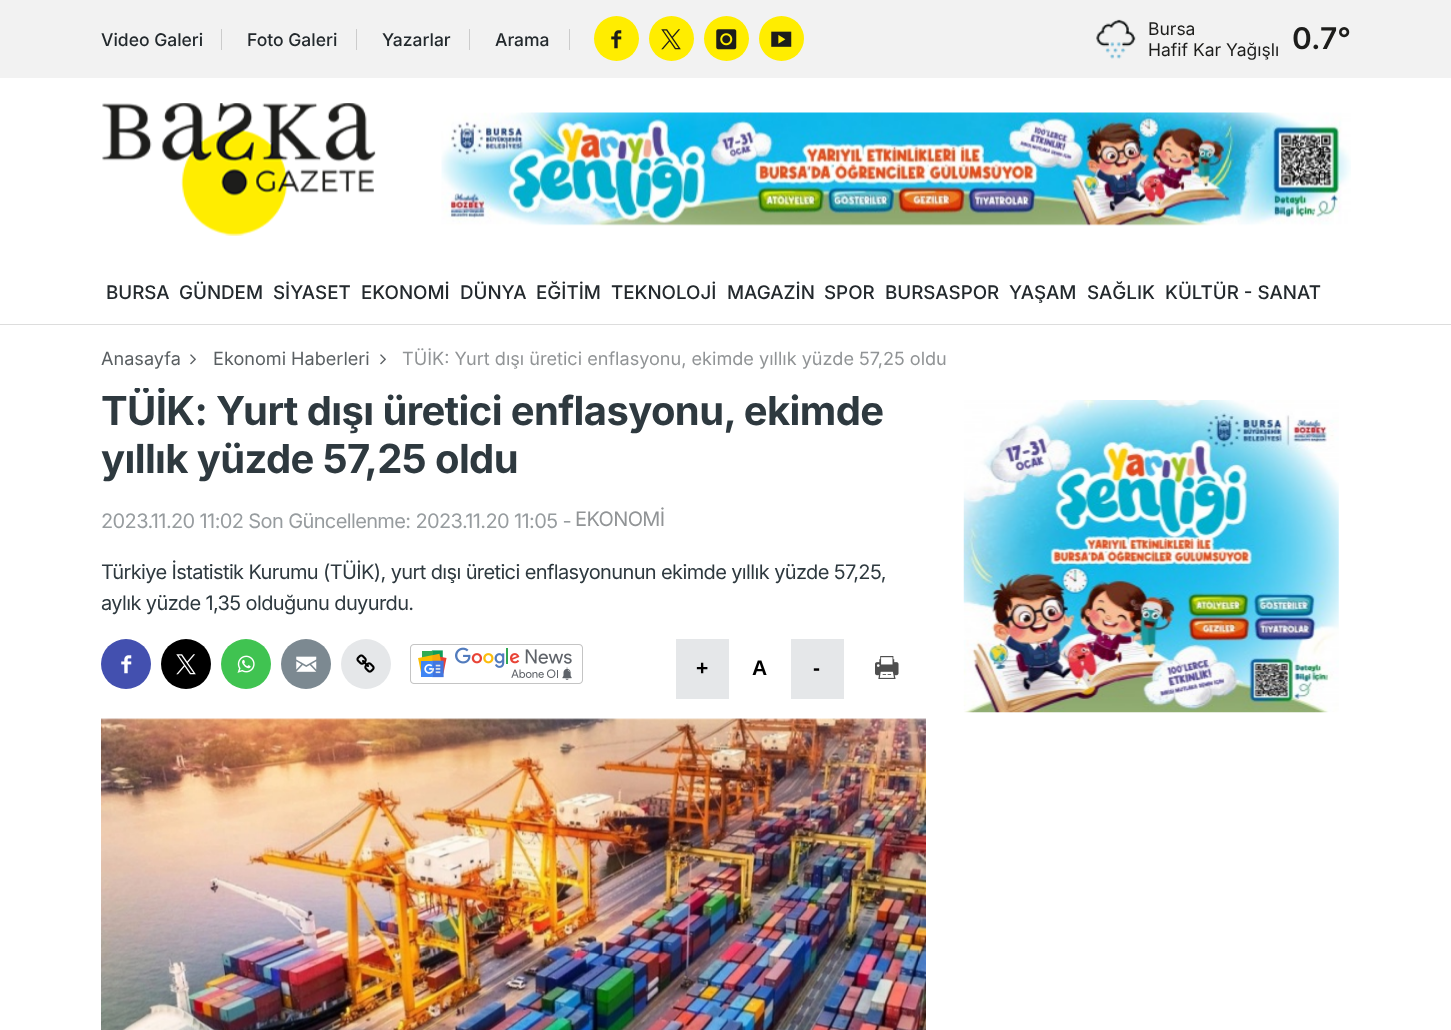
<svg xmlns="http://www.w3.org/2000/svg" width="1451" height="1030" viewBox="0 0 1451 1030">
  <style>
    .t1 { font: 500 17.5px Inter; fill: #23292d; }
    .t2 { font: 17.5px Inter; fill: #1d1d1b; }
    .t3 { font: 600 30px Inter; fill: #1d1d1b; }
    .t4 { font: 500 18.75px Inter; fill: #23292d; }
    .t5 { font: 18.1px Inter; fill: #5a5f62; }
    .t6 { font: 18.1px Inter; fill: #919496; }
    .t7 { font: bold 40px Inter; letter-spacing: -0.62px; fill: #2e393f; }
    .t8 { font: 20px Inter; letter-spacing: -0.62px; fill: #979c9f; }
    .t9 { font: 20px Inter; letter-spacing: -0.62px; fill: #919496; }
    .t10 { font: 20px Inter; letter-spacing: -0.62px; fill: #2e393f; }
    .t11 { font: bold 21px Liberation Sans; fill: #000; }
  </style>
  <defs>
    <clipPath id="clip1"><rect x="101" y="388" width="825" height="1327"/></clipPath>
  </defs>
  <rect width="100%" height="100%" fill="#fff"/>
  <rect x="0" y="0" width="1451" height="78" fill="#f2f2f2"/>
  <rect x="221" y="29" width="1" height="21" fill="#ccc"/>
  <text x="101" y="46" class="t1">Video Galeri</text>
  <rect x="356" y="29" width="1" height="21" fill="#ccc"/>
  <text x="247" y="46" class="t1">Foto Galeri</text>
  <rect x="469" y="29" width="1" height="21" fill="#ccc"/>
  <text x="382" y="46" class="t1">Yazarlar</text>
  <rect x="569" y="29" width="1" height="21" fill="#ccc"/>
  <text x="495" y="46" class="t1">Arama</text>
  <circle cx="616.5" cy="38.5" r="22.5" fill="#ffed00"/>
  <image x="611" y="30" width="11" height="19" href="images/1.png"/>
  <circle cx="671.5" cy="38.5" r="22.5" fill="#ffed00"/>
  <image x="661" y="29" width="20" height="21" href="images/2.png"/>
  <circle cx="726.5" cy="38.5" r="22.5" fill="#ffed00"/>
  <image x="716" y="29" width="21" height="21" href="images/3.png"/>
  <circle cx="781.5" cy="38.5" r="22.5" fill="#ffed00"/>
  <image x="771" y="31" width="21" height="16" href="images/4.png"/>
  <image x="1096" y="19" width="40" height="40" href="images/5.png"/>
  <text x="1148" y="35" class="t2">Bursa</text>
  <text x="1148" y="56" class="t2">Hafif Kar Yağışlı</text>
  <text x="1292" y="49" class="t3">0.7°</text>
  <image x="102" y="103" width="274" height="133" href="images/6.png"/>
  <image x="441" y="112" width="910" height="114" href="images/7.png"/>
  <rect x="0" y="324" width="1451" height="1" fill="#ddd"/>
  <text x="106" y="299" class="t4">BURSA</text>
  <text x="179" y="299" class="t4">GÜNDEM</text>
  <text x="273" y="299" class="t4">SİYASET</text>
  <text x="361" y="299" class="t4">EKONOMİ</text>
  <text x="460" y="299" class="t4">DÜNYA</text>
  <text x="536" y="299" class="t4">EĞİTİM</text>
  <text x="611" y="299" class="t4">TEKNOLOJİ</text>
  <text x="727" y="299" class="t4">MAGAZİN</text>
  <text x="824" y="299" class="t4">SPOR</text>
  <text x="885" y="299" class="t4">BURSASPOR</text>
  <text x="1009" y="299" class="t4">YAŞAM</text>
  <text x="1087" y="299" class="t4">SAĞLIK</text>
  <text x="1165" y="299" class="t4">KÜLTÜR - SANAT</text>
  <text x="101" y="365" class="t5">Anasayfa</text>
  <image x="190" y="354" width="6" height="11" href="images/8.png"/>
  <text x="213" y="365" class="t5">Ekonomi Haberleri</text>
  <image x="380" y="354" width="6" height="11" href="images/8.png"/>
  <text x="402" y="365" class="t6">TÜİK: Yurt dışı üretici enflasyonu, ekimde yıllık yüzde 57,25 oldu</text>
  <g clip-path="url(#clip1)">
    <text x="101" y="425" class="t7">TÜİK: Yurt dışı üretici enflasyonu, ekimde</text>
  </g>
  <text x="101" y="473" class="t7">yıllık yüzde 57,25 oldu</text>
  <text x="101" y="528" class="t8">2023.11.20 11:02 Son Güncellenme: 2023.11.20 11:05 -</text>
  <text x="575" y="526" class="t9">EKONOMİ</text>
  <text x="101" y="579" class="t10">Türkiye İstatistik Kurumu (TÜİK), yurt dışı üretici enflasyonunun ekimde yıllık yüzde 57,25,</text>
  <text x="101" y="610" class="t10">aylık yüzde 1,35 olduğunu duyurdu.</text>
  <circle cx="126" cy="664" r="25" fill="#4350af"/>
  <image x="121" y="655" width="11" height="19" href="images/9.png"/>
  <circle cx="186" cy="664" r="25" fill="#000"/>
  <image x="176" y="654" width="20" height="21" href="images/10.png"/>
  <circle cx="246" cy="664" r="25" fill="#40c351"/>
  <image x="237" y="655" width="18" height="18" href="images/11.png"/>
  <circle cx="306" cy="664" r="25" fill="#7c8991"/>
  <image x="296" y="656" width="21" height="16" href="images/12.png"/>
  <circle cx="366" cy="664" r="25" fill="#e5e7e9"/>
  <image x="356" y="654" width="19" height="19" href="images/13.png"/>
  <image x="410" y="644" width="173" height="40" href="images/14.png"/>
  <rect x="676" y="639" width="53" height="60" fill="#e5e7e9"/>
  <text x="696" y="675" class="t11">+</text>
  <text x="752" y="675" class="t11">A</text>
  <rect x="791" y="639" width="53" height="60" fill="#e5e7e9"/>
  <text x="813" y="675" class="t11">-</text>
  <image x="875" y="656" width="24" height="23" href="images/15.png"/>
  <image x="101" y="718" width="825" height="312" href="images/16.png"/>
  <image x="963" y="400" width="376" height="313" href="images/17.png"/>
</svg>
